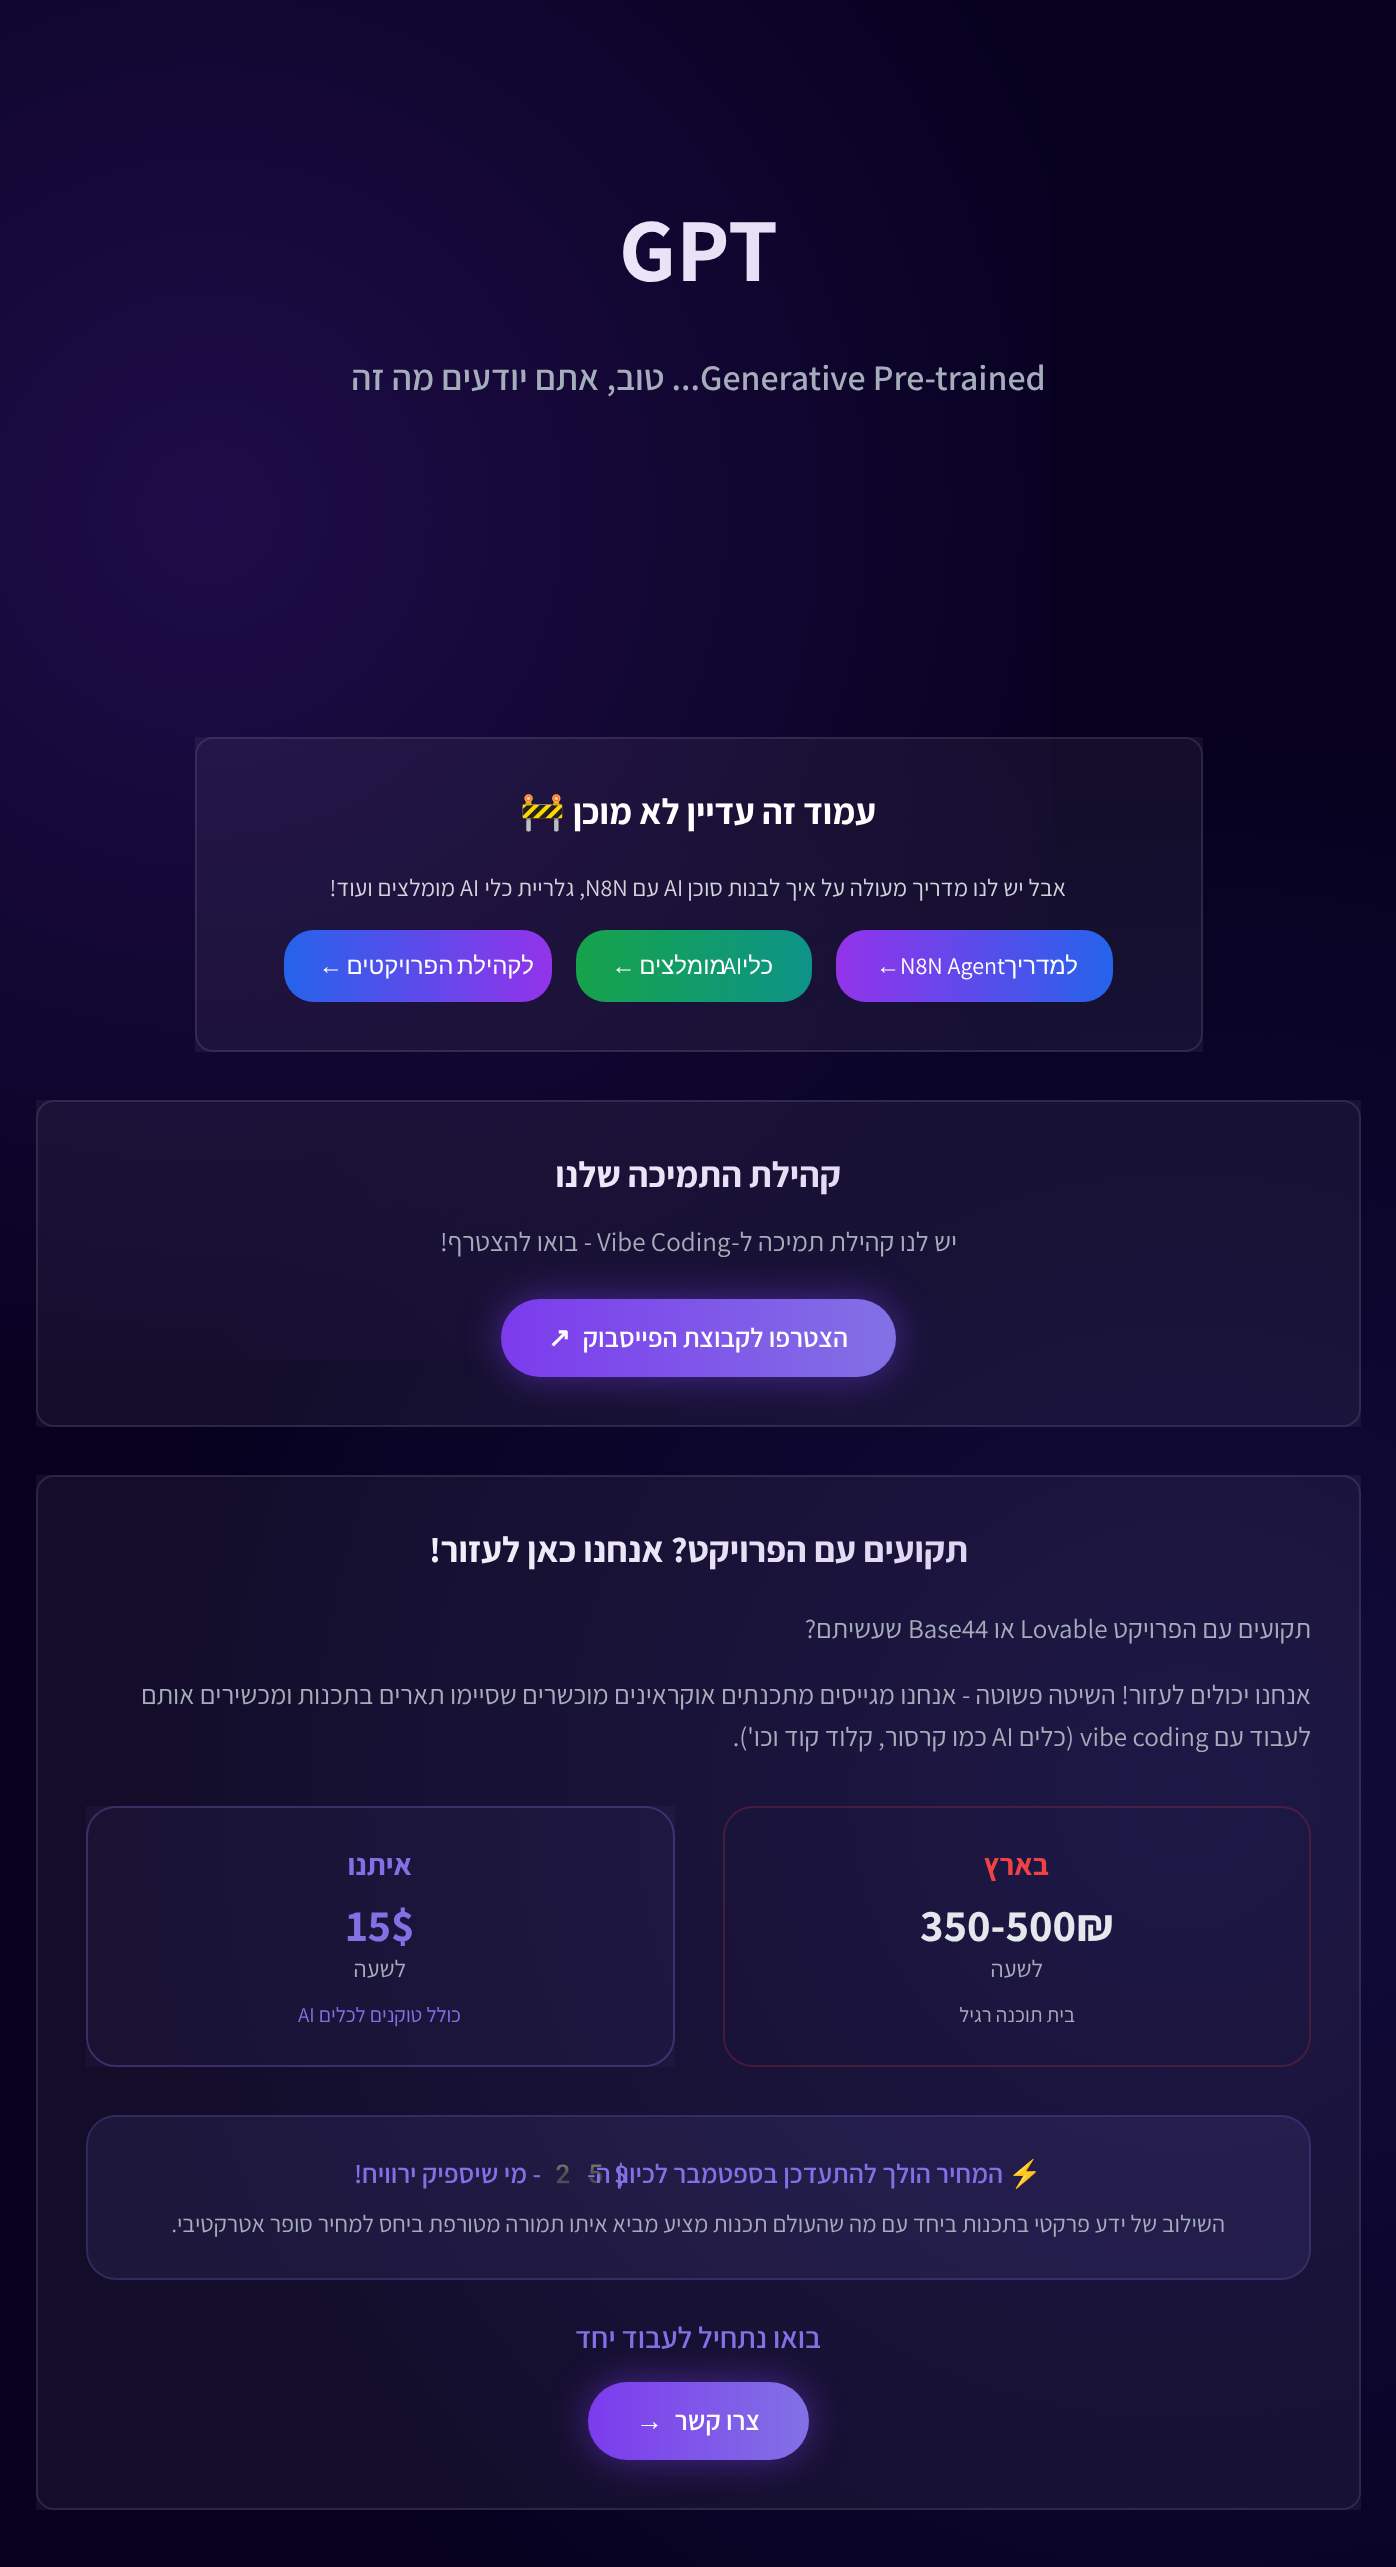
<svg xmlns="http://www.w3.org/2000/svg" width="1396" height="2567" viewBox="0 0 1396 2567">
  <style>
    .t1 { font: bold 90px Assistant; fill: url(#g1); }
    .t2 { font: 600 36px Assistant; fill: #a6adba; }
    .t3 { font: 600 36px Assistant; direction: rtl; fill: #a6adba; }
    .t4 { font: bold 36px Assistant; direction: rtl; fill: #fff; }
    .t5 { font: bold 36px Noto Color Emoji; direction: rtl; fill: #fff; }
    .t6 { font: 24px Assistant; direction: rtl; fill: #d1d5db; }
    .t7 { font: 24px Assistant; fill: #d1d5db; }
    .t8 { font: 24px Liberation Sans; direction: rtl; fill: #fff; }
    .t9 { font: 24px Assistant; fill: #fff; }
    .t10 { font: 24px Liberation Sans; fill: #fff; }
    .t11 { font: bold 36px Assistant; direction: rtl; fill: url(#g2); }
    .t12 { font: 27px Assistant; direction: rtl; fill: #a6adba; }
    .t13 { font: 27px Assistant; fill: #a6adba; }
    .t14 { font: 600 27px Assistant; direction: rtl; fill: #fff; }
    .t15 { font: bold 27px DejaVu Sans; fill: #fff; }
    .t16 { font: bold 36px Assistant; direction: rtl; fill: url(#g3); }
    .t17 { font: bold 30px Assistant; direction: rtl; fill: #ef4343; }
    .t18 { font: bold 45px Assistant; fill: #e3e8ed; }
    .t19 { font: 24px Assistant; direction: rtl; fill: #a6adba; }
    .t20 { font: 21px Assistant; direction: rtl; fill: #a6adba; }
    .t21 { font: bold 30px Assistant; direction: rtl; fill: #8271e5; }
    .t22 { font: bold 45px Assistant; fill: #8271e5; }
    .t23 { font: 21px Assistant; direction: rtl; fill: #8271e5; }
    .t24 { font: 21px Assistant; fill: #8271e5; }
    .t25 { font: bold 27px Noto Color Emoji; direction: rtl; fill: #8271e5; }
    .t26 { font: 600 27px Assistant; fill: #8271e5; }
    .t27 { font: bold 27px Noto Color Emoji; fill: #8271e5; }
    .t28 { font: 600 27px Assistant; direction: rtl; fill: #8271e5; }
    .t29 { font: 600 30px Assistant; direction: rtl; fill: #8271e5; }
    .t30 { font: bold 27px Liberation Sans; fill: #fff; }
  </style>
  <defs>
    <linearGradient id="g1" gradientUnits="userSpaceOnUse" x1="36" y1="248" x2="1361" y2="248"><stop offset="0" stop-color="#fff"/><stop offset="1" stop-color="#d3c5ed"/></linearGradient>
    <linearGradient id="g2" gradientUnits="userSpaceOnUse" x1="86" y1="1173" x2="1311" y2="1173"><stop offset="0" stop-color="#fff"/><stop offset="1" stop-color="#d3c5ed"/></linearGradient>
    <linearGradient id="g3" gradientUnits="userSpaceOnUse" x1="86" y1="1548" x2="1311" y2="1548"><stop offset="0" stop-color="#fff"/><stop offset="1" stop-color="#d3c5ed"/></linearGradient>
    <radialGradient id="g4" gradientUnits="userSpaceOnUse" cx="1187" cy="1798" r="2154"><stop offset="0" stop-color="#120c3d"/><stop offset="0.5" stop-color="#07011f"/></radialGradient>
    <radialGradient id="g5" gradientUnits="userSpaceOnUse" cx="209" cy="514" r="2373"><stop offset="0" stop-color="#7c3bed" stop-opacity="0.2"/><stop offset="0.4" stop-color="#7c3bed" stop-opacity="0"/></radialGradient>
    <linearGradient id="g6" gradientUnits="userSpaceOnUse" x1="836" y1="966" x2="1113" y2="966"><stop offset="0" stop-color="#9333ea"/><stop offset="1" stop-color="#2563eb"/></linearGradient>
    <linearGradient id="g7" gradientUnits="userSpaceOnUse" x1="576" y1="966" x2="812" y2="966"><stop offset="0" stop-color="#16a34a"/><stop offset="1" stop-color="#0d9488"/></linearGradient>
    <linearGradient id="g8" gradientUnits="userSpaceOnUse" x1="284" y1="966" x2="552" y2="966"><stop offset="0" stop-color="#2563eb"/><stop offset="1" stop-color="#9333ea"/></linearGradient>
    <linearGradient id="g9" gradientUnits="userSpaceOnUse" x1="501" y1="1338" x2="896" y2="1338"><stop offset="0" stop-color="#7c3bed"/><stop offset="1" stop-color="#8271e5"/></linearGradient>
    <linearGradient id="g10" gradientUnits="userSpaceOnUse" x1="588" y1="2421" x2="809" y2="2421"><stop offset="0" stop-color="#7c3bed"/><stop offset="1" stop-color="#8271e5"/></linearGradient>
  </defs>
  <rect width="100%" height="100%" fill="#fff"/>
  <rect x="0" y="0" width="1396" height="2567" fill="url(#g4)"/>
  <rect x="0" y="0" width="1051" height="1360" fill="url(#g5)"/>
  <text x="619" y="281" class="t1">GPT</text>
  <text x="700" y="390" class="t2">Generative Pre-trained</text>
  <text x="700" y="390" class="t3">... טוב, אתם יודעים מה זה</text>
  <rect x="195" y="737" width="1008" height="315" fill="#ffffff0d"/>
  <rect x="196" y="738" width="1006" height="313" rx="17" fill="none" stroke="#ffffff1a" stroke-width="2"/>
  <text x="876" y="824" class="t4">עמוד זה עדיין לא מוכן</text>
  <text x="565" y="824" class="t5">🚧</text>
  <text x="1066" y="896" class="t6">אבל יש לנו מדריך מעולה על איך לבנות סוכן</text>
  <text x="664" y="896" class="t7">AI</text>
  <text x="659" y="896" class="t6">עם</text>
  <text x="585" y="896" class="t7">N8N</text>
  <text x="585" y="896" class="t6">, גלריית כלי</text>
  <text x="460" y="896" class="t7">AI</text>
  <text x="455" y="896" class="t6">מומלצים ועוד!</text>
  <rect x="836" y="930" width="277" height="72" rx="30" fill="url(#g6)"/>
  <text x="1078" y="974" class="t8">למדריך</text>
  <text x="900" y="974" class="t9">N8N Agent</text>
  <text x="876" y="974" class="t10">←</text>
  <rect x="576" y="930" width="236" height="72" rx="30" fill="url(#g7)"/>
  <text x="773" y="974" class="t8">כלי</text>
  <text x="726" y="974" word-spacing="-3" class="t8">מומלצים ←</text>
  <text x="723" y="974" class="t9">AI</text>
  <rect x="284" y="930" width="268" height="72" rx="30" fill="url(#g8)"/>
  <text x="534" y="974" word-spacing="-3" class="t8">לקהילת הפרויקטים ←</text>
  <rect x="36" y="1100" width="1325" height="327" fill="#ffffff0d"/>
  <rect x="37" y="1101" width="1323" height="325" rx="17" fill="none" stroke="#ffffff1a" stroke-width="2"/>
  <text x="841" y="1187" class="t11">קהילת התמיכה שלנו</text>
  <text x="957" y="1251" class="t12">יש לנו קהילת תמיכה ל-</text>
  <text x="597" y="1251" class="t13">Vibe Coding</text>
  <text x="592" y="1251" class="t12">- בואו להצטרף!</text>
  <rect x="501" y="1299" width="395" height="78" rx="39" fill="#7c3bed80" filter="blur(19px)"/>
  <rect x="501" y="1299" width="395" height="78" rx="39" fill="url(#g9)"/>
  <text x="848" y="1347" class="t14">הצטרפו לקבוצת הפייסבוק</text>
  <text x="548" y="1347" class="t15">↗</text>
  <rect x="36" y="1475" width="1325" height="1035" fill="#ffffff0d"/>
  <rect x="37" y="1476" width="1323" height="1033" rx="17" fill="none" stroke="#ffffff1a" stroke-width="2"/>
  <text x="968" y="1562" class="t16">תקועים עם הפרויקט? אנחנו כאן לעזור!</text>
  <text x="1311" y="1638" class="t12">תקועים עם הפרויקט</text>
  <text x="1020" y="1638" class="t13">Lovable</text>
  <text x="1015" y="1638" class="t12">או</text>
  <text x="908" y="1638" class="t13">Base44</text>
  <text x="902" y="1638" class="t12">שעשיתם?</text>
  <text x="1311" y="1704" class="t12">אנחנו יכולים לעזור! השיטה פשוטה - אנחנו מגייסים מתכנתים אוקראינים מוכשרים שסיימו תארים בתכנות ומכשירים אותם</text>
  <text x="1311" y="1746" class="t12">לעבוד עם</text>
  <text x="1080" y="1746" class="t13">vibe coding</text>
  <text x="1074" y="1746" class="t12">(כלים</text>
  <text x="992" y="1746" class="t13">AI</text>
  <text x="987" y="1746" class="t12">כמו קרסור, קלוד קוד וכו').</text>
  <rect x="724" y="1807" width="586" height="259" rx="29" fill="none" stroke="#ef434333" stroke-width="2"/>
  <text x="1049" y="1875" class="t17">בארץ</text>
  <text x="920" y="1941" class="t18">350-500₪</text>
  <text x="1043" y="1977" class="t19">לשעה</text>
  <text x="1075" y="2022" class="t20">בית תוכנה רגיל</text>
  <rect x="86" y="1806" width="589" height="261" fill="#8271e50d"/>
  <rect x="87" y="1807" width="587" height="259" rx="29" fill="none" stroke="#8271e54d" stroke-width="2"/>
  <text x="412" y="1875" class="t21">איתנו</text>
  <text x="346" y="1941" class="t22">15$</text>
  <text x="406" y="1977" class="t19">לשעה</text>
  <text x="461" y="2022" class="t23">כולל טוקנים לכלים</text>
  <text x="298" y="2022" class="t24">AI</text>
  <rect x="86" y="2115" width="1225" height="165" rx="30" fill="#8271e51a"/>
  <rect x="87" y="2116" width="1223" height="163" rx="29" fill="none" stroke="#8271e533" stroke-width="2"/>
  <text x="1042" y="2183" class="t25">⚡</text>
  <text x="614" y="2183" class="t26">$</text>
  <text x="546" y="2183" class="t27">25</text>
  <text x="1003" y="2183" class="t28">המחיר הולך להתעדכן בספטמבר לכיוון ה-</text>
  <text x="541" y="2183" class="t28">- מי שיספיק ירוויח!</text>
  <text x="1225" y="2232" class="t19">השילוב של ידע פרקטי בתכנות ביחד עם מה שהעולם תכנות מציע מביא איתו תמורה מטורפת ביחס למחיר סופר אטרקטיבי.</text>
  <text x="821" y="2348" class="t29">בואו נתחיל לעבוד יחד</text>
  <rect x="588" y="2382" width="221" height="78" rx="39" fill="#7c3bed80" filter="blur(19px)"/>
  <rect x="588" y="2382" width="221" height="78" rx="39" fill="url(#g10)"/>
  <text x="760" y="2430" class="t14">צרו קשר</text>
  <text x="636" y="2430" class="t30">→</text>
</svg>
